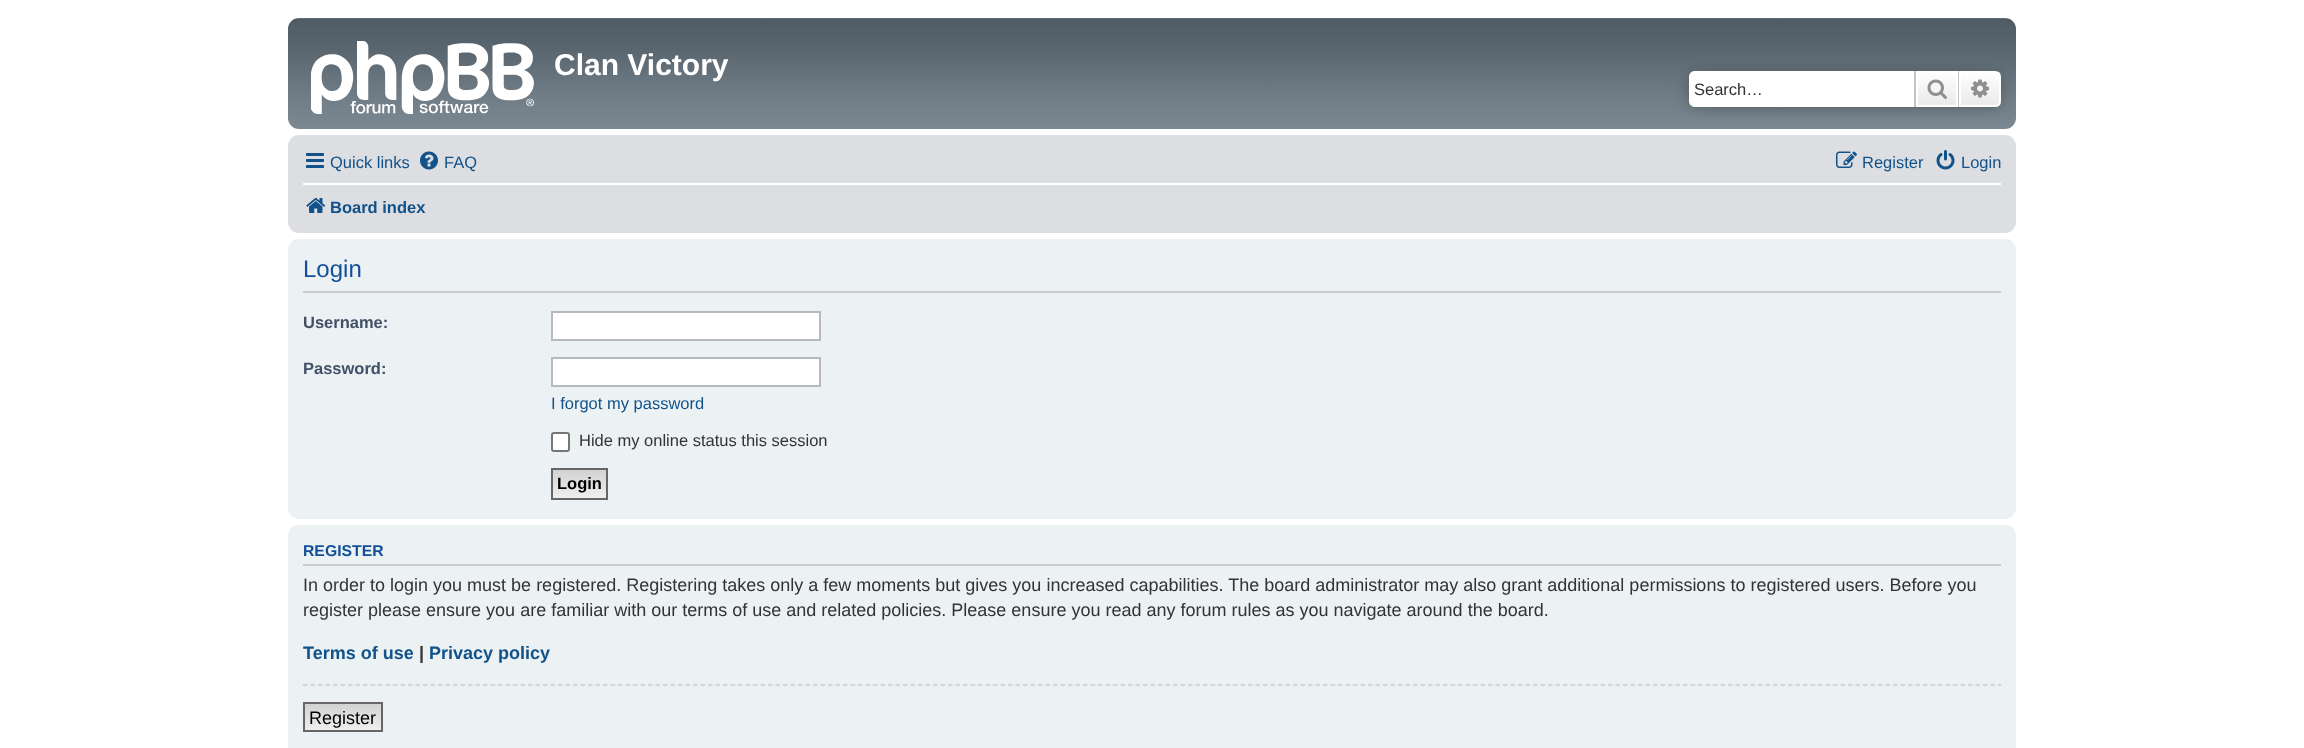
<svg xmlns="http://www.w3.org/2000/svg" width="2304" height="748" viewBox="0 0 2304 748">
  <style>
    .t1 { font: bold 30px Liberation Sans; fill: #fff; }
    .t2 { font: 16.5px Liberation Sans; fill: #333; }
    .t3 { font: 16.5px Liberation Sans; fill: #105289; }
    .t4 { font: bold 16.5px Liberation Sans; fill: #105289; }
    .t5 { font: 24px Liberation Sans; fill: #115098; }
    .t6 { font: bold 16.5px Liberation Sans; fill: #425067; }
    .t7 { font: bold 16.5px Liberation Sans; fill: #000; }
    .t8 { font: bold 15.75px Liberation Sans; fill: #115098; }
    .t9 { font: 18px Liberation Sans; fill: #333; }
    .t10 { font: bold 18px Liberation Sans; fill: #105289; }
    .t11 { font: bold 18px Liberation Sans; fill: #333; }
    .t12 { font: 18px Liberation Sans; fill: #000; }
  </style>
  <defs>
    <linearGradient id="g1" gradientUnits="userSpaceOnUse" x1="1152" y1="18" x2="1152" y2="129"><stop offset="0" stop-color="#6e777f"/><stop offset="0.01" stop-color="#505c65"/><stop offset="0.2" stop-color="#56626b"/><stop offset="0.75" stop-color="#737f88"/><stop offset="1" stop-color="#7c8891"/></linearGradient>
    <linearGradient id="g2" gradientUnits="userSpaceOnUse" x1="1937" y1="71" x2="1937" y2="107"><stop offset="0" stop-color="#fff"/><stop offset="1" stop-color="#e9e9e9"/></linearGradient>
    <linearGradient id="g3" gradientUnits="userSpaceOnUse" x1="1980" y1="71" x2="1980" y2="107"><stop offset="0" stop-color="#fff"/><stop offset="1" stop-color="#e9e9e9"/></linearGradient>
    <linearGradient id="g4" gradientUnits="userSpaceOnUse" x1="579" y1="470" x2="579" y2="498"><stop offset="0" stop-color="#d2d2d2"/><stop offset="1" stop-color="#efefef"/></linearGradient>
    <linearGradient id="g5" gradientUnits="userSpaceOnUse" x1="343" y1="704" x2="343" y2="731"><stop offset="0" stop-color="#d2d2d2"/><stop offset="1" stop-color="#efefef"/></linearGradient>
  </defs>
  <rect width="100%" height="100%" fill="#fff"/>
  <rect x="288" y="18" width="1728" height="111" rx="11" fill="url(#g1)"/>
  <image x="311" y="41" width="223" height="73" href="images/1.png"/>
  <text x="554" y="75" class="t1">Clan Victory</text>
  <rect x="1689" y="71" width="312" height="36" rx="6" fill="#505c65" filter="blur(7.5px)"/>
  <path d="M1695 71H1914V107H1695C1691.5 107 1689 104.5 1689 101V77C1689 73.5 1691.5 71 1695 71Z" fill="#fff"/>
  <text x="1694" y="95" class="t2">Search…</text>
  <rect x="1918" y="73" width="38" height="32" fill="url(#g2)"/>
  <rect x="1917" y="72" width="40" height="34" fill="none" stroke="#fff" stroke-width="2"/>
  <rect x="1958" y="71" width="1" height="36" fill="#c7c3bf"/>
  <rect x="1914" y="71" width="2" height="36" fill="#c7c3bf"/>
  <image x="1927" y="79" width="20" height="20" href="images/2.png"/>
  <path d="M1960 72H1995C1998 72 2000 74 2000 77V101C2000 104 1998 106 1995 106H1960Z" fill="url(#g3)" stroke="#fff" stroke-width="2"/>
  <image x="1971" y="79" width="18" height="19" href="images/3.png"/>
  <rect x="288" y="135" width="1728" height="98" rx="11" fill="#dcdee2"/>
  <image x="306" y="153" width="18" height="15" href="images/4.png"/>
  <text x="330" y="168" class="t3">Quick links</text>
  <image x="420" y="151" width="18" height="19" href="images/5.png"/>
  <text x="444" y="168" class="t3">FAQ</text>
  <image x="1836" y="151" width="21" height="17" href="images/6.png"/>
  <text x="1862" y="168" class="t3">Register</text>
  <image x="1936" y="150" width="19" height="20" href="images/7.png"/>
  <text x="1961" y="168" class="t3">Login</text>
  <rect x="303" y="183" width="1698" height="2" fill="#fff"/>
  <image x="306" y="198" width="20" height="15" href="images/8.png"/>
  <text x="330" y="213" class="t4">Board index</text>
  <rect x="288" y="239" width="1728" height="280" rx="11" fill="#ecf1f3"/>
  <rect x="303" y="291" width="1698" height="2" fill="#ccc"/>
  <text x="303" y="277" class="t5">Login</text>
  <text x="303" y="328" class="t6">Username:</text>
  <rect x="552" y="312" width="268" height="28" fill="#fff" stroke="#b4bac0" stroke-width="2"/>
  <text x="303" y="374" class="t6">Password:</text>
  <rect x="552" y="358" width="268" height="28" fill="#fff" stroke="#b4bac0" stroke-width="2"/>
  <text x="551" y="409" class="t3">I forgot my password</text>
  <rect x="552" y="433" width="17" height="18" rx="2" fill="#fff" stroke="#767676" stroke-width="2"/>
  <text x="579" y="446" class="t2">Hide my online status this session</text>
  <rect x="553" y="470" width="53" height="28" fill="url(#g4)"/>
  <rect x="552" y="469" width="55" height="30" fill="none" stroke="#666" stroke-width="2"/>
  <text x="557" y="489" class="t7">Login</text>
  <rect x="288" y="525" width="1728" height="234" rx="11" fill="#ecf1f3"/>
  <rect x="303" y="564" width="1698" height="2" fill="#ccc"/>
  <text x="303" y="556" class="t8">REGISTER</text>
  <text x="303" y="591" class="t9">In order to login you must be registered. Registering takes only a few moments but gives you increased capabilities. The board administrator may also grant additional permissions to registered users. Before you</text>
  <text x="303" y="616" class="t9">register please ensure you are familiar with our terms of use and related policies. Please ensure you read any forum rules as you navigate around the board.</text>
  <text x="303" y="659" class="t10">Terms of use</text>
  <text x="419" y="659" class="t11">|</text>
  <text x="429" y="659" class="t10">Privacy policy</text>
  <path d="M303 685H2001" fill="none" stroke="#ccc" stroke-width="1.5" stroke-dasharray="4.5 3"/>
  <rect x="305" y="704" width="76" height="26" fill="url(#g5)"/>
  <rect x="304" y="703" width="78" height="28" fill="none" stroke="#666" stroke-width="2"/>
  <text x="309" y="724" class="t12">Register</text>
</svg>
